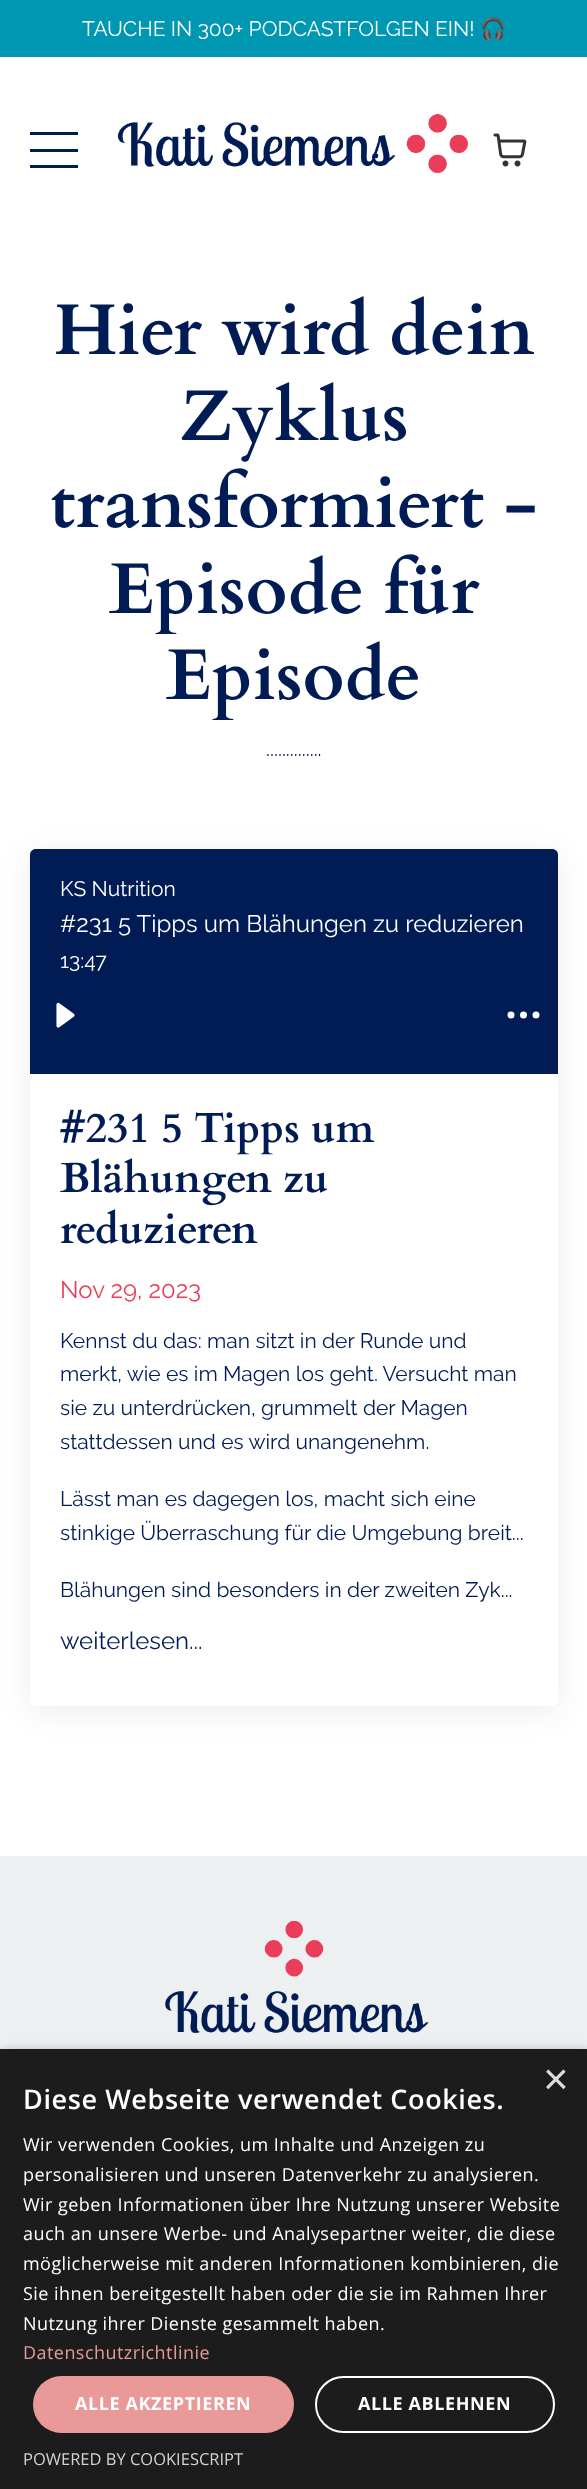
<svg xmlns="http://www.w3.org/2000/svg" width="587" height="2489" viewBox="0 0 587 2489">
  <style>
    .t1 { font: 21px Raleway; fill: #fff; }
    .t2 { font: 21px Noto Color Emoji; fill: #fff; }
    .t3 { font: bold 72px Cardo; fill: #011c55; }
    .t4 { font: 21px Raleway; fill: #011c55; }
    .t5 { font: 24px Raleway; fill: #fff; }
    .t6 { font: bold 42px Cardo; fill: #011c55; }
    .t7 { font: 24px Raleway; fill: #eb3c59; }
    .t8 { font: 24px Raleway; fill: #011c55; }
    .t9 { font: 44px Liberation Sans; fill: #ddd; }
    .t10 { font: 600 27px Open Sans; letter-spacing: 0.6px; fill: #fff; }
    .t11 { font: 18px Open Sans; letter-spacing: 0.45px; fill: #fff; }
    .t12 { font: 18px Open Sans; letter-spacing: 0.45px; fill: #ea9999; }
    .t13 { font: bold 18px Open Sans; letter-spacing: 0.6px; fill: #fff; }
    .t14 { font: 16.5px Open Sans; fill: #d2d2d2; }
  </style>
  <rect width="100%" height="100%" fill="#fff"/>
  <rect x="0" y="0" width="587" height="57" fill="#0097b2"/>
  <text x="82" y="36" class="t1">TAUCHE IN 300+ PODCASTFOLGEN EIN!</text>
  <text x="480" y="36" class="t2">🎧</text>
  <rect x="30" y="132" width="48" height="3" fill="#011c55"/>
  <rect x="30" y="149" width="48" height="3" fill="#011c55"/>
  <rect x="30" y="165" width="48" height="3" fill="#011c55"/>
  <image x="117" y="114" width="352" height="60" href="images/1.png"/>
  <image x="493" y="133" width="34" height="34" href="images/2.png"/>
  <text x="54" y="354" class="t3">Hier wird dein</text>
  <text x="179" y="440" class="t3">Zyklus</text>
  <text x="50" y="527" class="t3">transformiert -</text>
  <text x="109" y="613" class="t3">Episode für</text>
  <text x="166" y="699" class="t3">Episode</text>
  <text x="266" y="756" class="t4">..............</text>
  <rect x="30" y="855" width="528" height="857" rx="6" fill="#00000012" filter="blur(15px)"/>
  <rect x="30" y="849" width="528" height="857" rx="6" fill="#fff"/>
  <path d="M36 849H552C555.5 849 558 851.5 558 855V1074H30V855C30 851.5 32.5 849 36 849Z" fill="#011c55"/>
  <text x="60" y="896" class="t1">KS Nutrition</text>
  <text x="60" y="932" class="t5">#231 5 Tipps um Blähungen zu reduzieren</text>
  <text x="60" y="968" class="t1">13:47</text>
  <image x="56" y="1002" width="19" height="26" href="images/3.png"/>
  <circle cx="511" cy="1015" r="3.5" fill="#fff"/>
  <circle cx="523.5" cy="1015" r="3.5" fill="#fff"/>
  <circle cx="536" cy="1015" r="3.5" fill="#fff"/>
  <text x="60" y="1142" class="t6">#231 5 Tipps um</text>
  <text x="60" y="1192" class="t6">Blähungen zu</text>
  <text x="60" y="1243" class="t6">reduzieren</text>
  <text x="60" y="1298" class="t7">Nov 29, 2023</text>
  <text x="60" y="1348" class="t4">Kennst du das: man sitzt in der Runde und</text>
  <text x="60" y="1381" class="t4">merkt, wie es im Magen los geht. Versucht man</text>
  <text x="60" y="1415" class="t4">sie zu unterdrücken, grummelt der Magen</text>
  <text x="60" y="1449" class="t4">stattdessen und es wird unangenehm.</text>
  <text x="60" y="1506" class="t4">Lässt man es dagegen los, macht sich eine</text>
  <text x="60" y="1540" class="t4">stinkige Überraschung für die Umgebung breit...</text>
  <text x="60" y="1597" class="t4">Blähungen sind besonders in der zweiten Zyk...</text>
  <text x="60" y="1649" class="t8">weiterlesen...</text>
  <rect x="0" y="1856" width="587" height="193" fill="#ecf0f1"/>
  <image x="165" y="1921" width="264" height="113" href="images/4.png"/>
  <rect x="2" y="2052" width="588" height="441" fill="#00000059" filter="blur(6px)"/>
  <rect x="0" y="2049" width="587" height="440" fill="#1c1c1c"/>
  <text x="543" y="2094" class="t9">×</text>
  <text x="23" y="2109" class="t10">Diese Webseite verwendet Cookies.</text>
  <text x="23" y="2151" class="t11">Wir verwenden Cookies, um Inhalte und Anzeigen zu</text>
  <text x="23" y="2181" class="t11">personalisieren und unseren Datenverkehr zu analysieren.</text>
  <text x="23" y="2211" class="t11">Wir geben Informationen über Ihre Nutzung unserer Website</text>
  <text x="23" y="2240" class="t11">auch an unsere Werbe- und Analysepartner weiter, die diese</text>
  <text x="23" y="2270" class="t11">möglicherweise mit anderen Informationen kombinieren, die</text>
  <text x="23" y="2300" class="t11">Sie ihnen bereitgestellt haben oder die sie im Rahmen Ihrer</text>
  <text x="23" y="2330" class="t11">Nutzung ihrer Dienste gesammelt haben.</text>
  <text x="23" y="2359" class="t12">Datenschutzrichtlinie</text>
  <rect x="33" y="2376" width="261" height="57" rx="28.5" fill="#ea9999"/>
  <text x="75" y="2410" class="t13">ALLE AKZEPTIEREN</text>
  <rect x="316" y="2377" width="238" height="55" rx="27.5" fill="none" stroke="#fff" stroke-width="2"/>
  <text x="358" y="2410" class="t13">ALLE ABLEHNEN</text>
  <text x="23" y="2465" class="t14">POWERED BY COOKIESCRIPT</text>
</svg>
